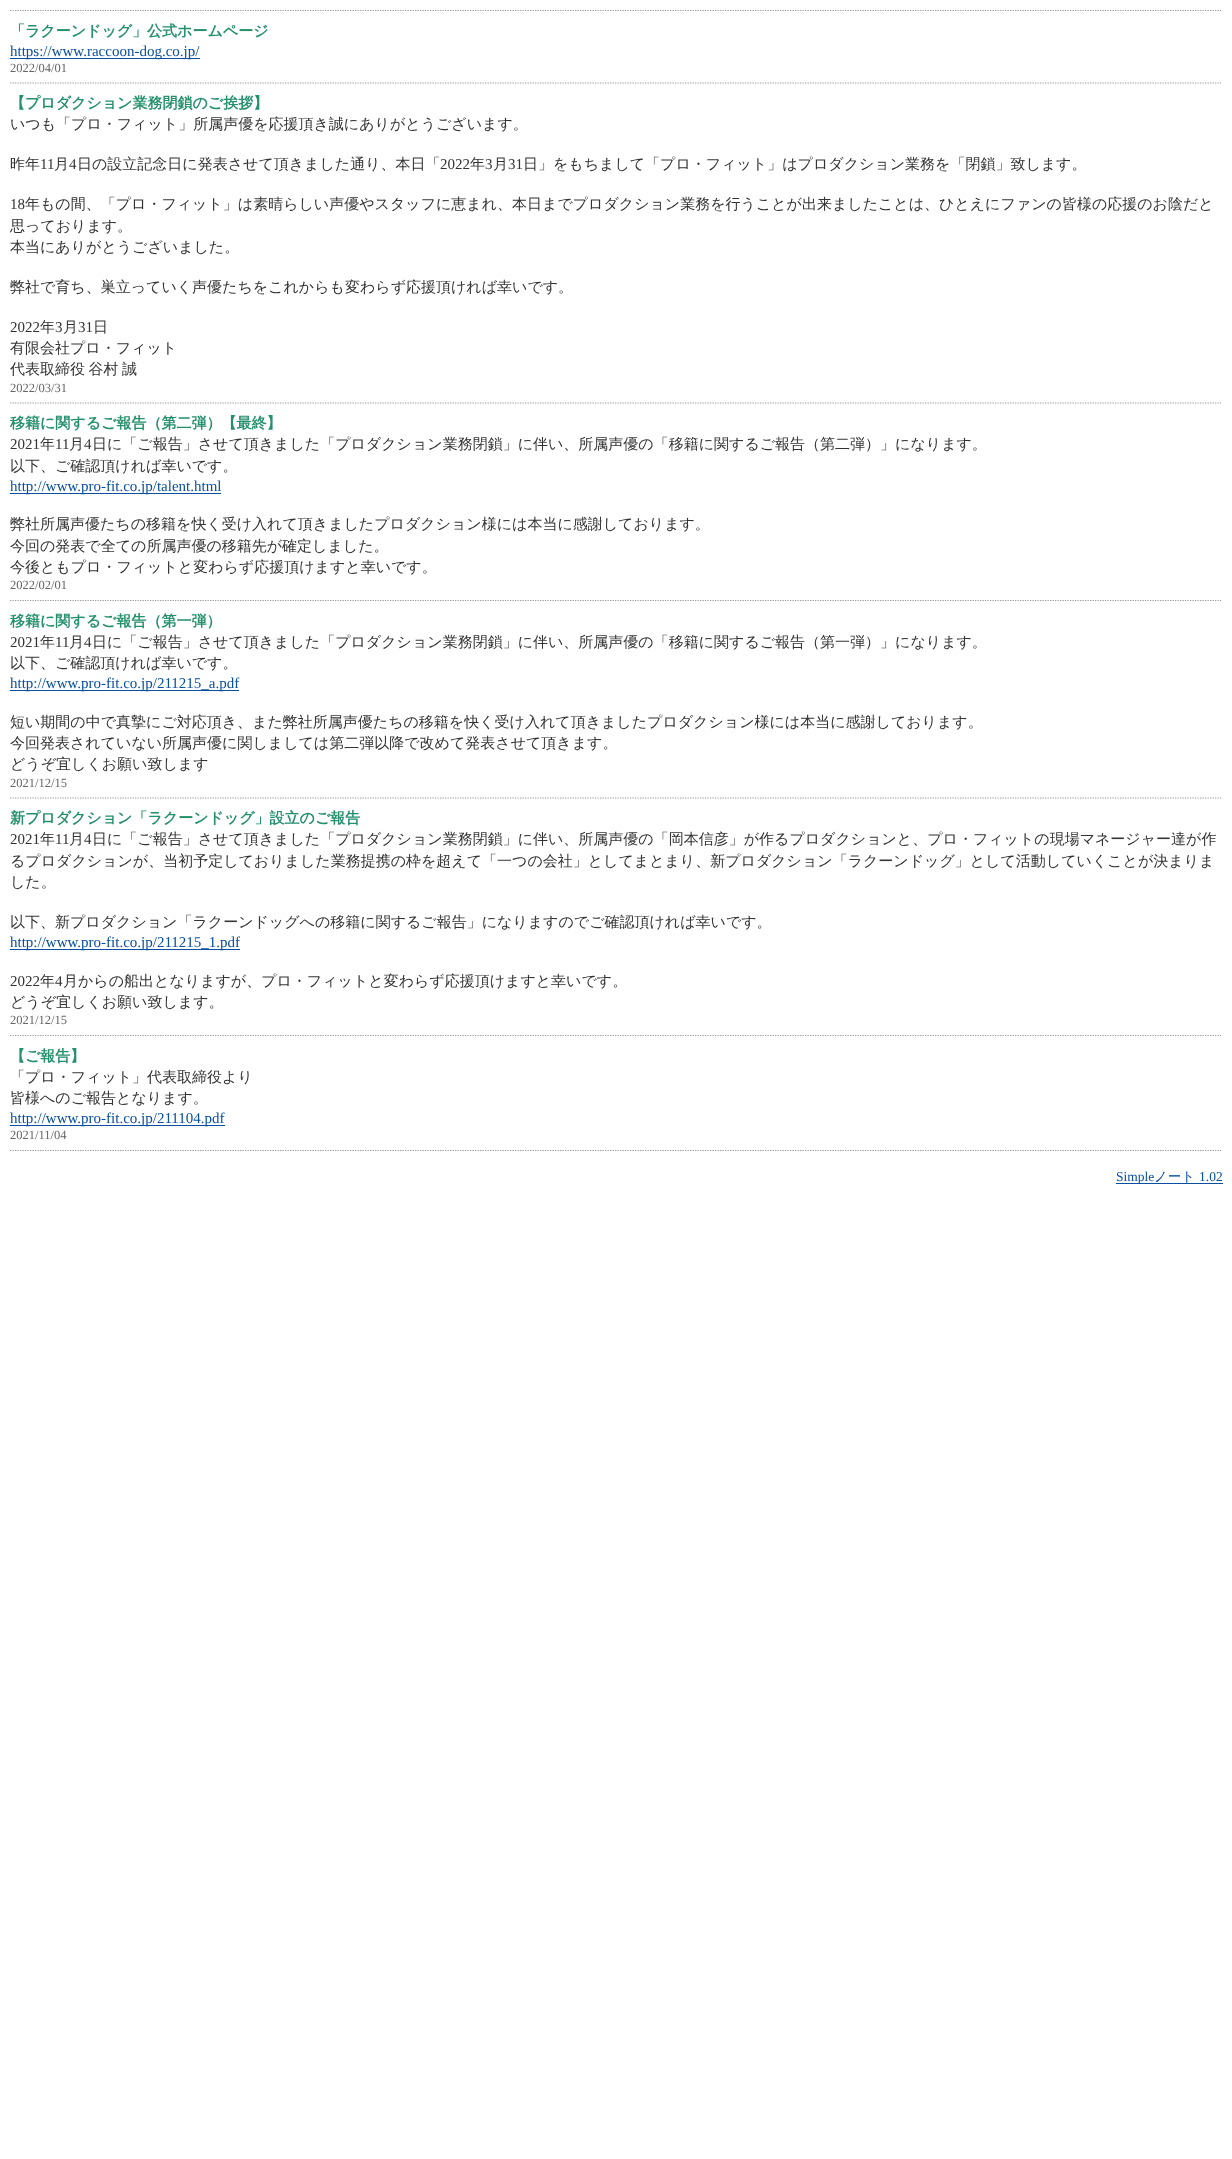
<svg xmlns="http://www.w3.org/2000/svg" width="1232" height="2159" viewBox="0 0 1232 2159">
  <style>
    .t1 { font: bold 15px WenQuanYi Zen Hei; fill: #25916b; }
    .t2 { font: 15px Liberation Serif; fill: #0a50a1; }
    .t3 { font: 12.5px Liberation Serif; fill: #666; }
    .t4 { font: 500 15px WenQuanYi Zen Hei; fill: #333; }
    .t5 { font: 15px Liberation Serif; fill: #333; }
    .t6 { font: 13.5px Liberation Serif; fill: #0a50a1; }
    .t7 { font: 500 13.5px WenQuanYi Zen Hei; fill: #0a50a1; }
  </style>
  <rect width="100%" height="100%" fill="#fff"/>
  <path d="M10 10.5H1222.5" fill="none" stroke="#999" stroke-width="1.2" stroke-dasharray="1.25 1.25"/>
  <text x="10" y="36" class="t1">「ラクーンドッグ」公式ホームページ</text>
  <rect x="10" y="58" width="190" height="1" fill="#0a50a1"/>
  <text x="10" y="56" class="t2">https://www.raccoon-dog.co.jp/</text>
  <text x="10" y="72" class="t3">2022/04/01</text>
  <path d="M10 83H1222.5" fill="none" stroke="#999" stroke-width="1.2" stroke-dasharray="1.25 1.25"/>
  <text x="10" y="108" class="t1">【プロダクション業務閉鎖のご挨拶】</text>
  <text x="10" y="129" class="t4">いつも「プロ・フィット」所属声優を応援頂き誠にありがとうございます。</text>
  <text x="10" y="169" class="t4">昨年</text>
  <text x="40" y="169" class="t5">11</text>
  <text x="54" y="169" class="t4">月</text>
  <text x="69" y="169" class="t5">4</text>
  <text x="77" y="169" class="t4">日の設立記念日に発表させて頂きました通り、本日「</text>
  <text x="440" y="169" class="t5">2022</text>
  <text x="470" y="169" class="t4">年</text>
  <text x="485" y="169" class="t5">3</text>
  <text x="493" y="169" class="t4">月</text>
  <text x="508" y="169" class="t5">31</text>
  <text x="523" y="169" class="t4">日」をもちまして「プロ・フィット」はプロダクション業務を「閉鎖」致します。</text>
  <text x="10" y="209" class="t5">18</text>
  <text x="25" y="209" class="t4">年もの間、「プロ・フィット」は素晴らしい声優やスタッフに恵まれ、本日までプロダクション業務を行うことが出来ましたことは、ひとえにファンの皆様の応援のお陰だと</text>
  <text x="10" y="231" class="t4">思っております。</text>
  <text x="10" y="252" class="t4">本当にありがとうございました。</text>
  <text x="10" y="292" class="t4">弊社で育ち、巣立っていく声優たちをこれからも変わらず応援頂ければ幸いです。</text>
  <text x="10" y="332" class="t5">2022</text>
  <text x="40" y="332" class="t4">年</text>
  <text x="55" y="332" class="t5">3</text>
  <text x="63" y="332" class="t4">月</text>
  <text x="78" y="332" class="t5">31</text>
  <text x="93" y="332" class="t4">日</text>
  <text x="10" y="353" class="t4">有限会社プロ・フィット</text>
  <text x="10" y="374" word-spacing="-1" class="t4">代表取締役 谷村 誠</text>
  <text x="10" y="392" class="t3">2022/03/31</text>
  <path d="M10 403H1222.5" fill="none" stroke="#999" stroke-width="1.2" stroke-dasharray="1.25 1.25"/>
  <text x="10" y="428" class="t1">移籍に関するご報告（第二弾）【最終】</text>
  <text x="10" y="449" class="t5">2021</text>
  <text x="40" y="449" class="t4">年</text>
  <text x="55" y="449" class="t5">11</text>
  <text x="69" y="449" class="t4">月</text>
  <text x="84" y="449" class="t5">4</text>
  <text x="92" y="449" class="t4">日に「ご報告」させて頂きました「プロダクション業務閉鎖」に伴い、所属声優の「移籍に関するご報告（第二弾）」になります。</text>
  <text x="10" y="471" class="t4">以下、ご確認頂ければ幸いです。</text>
  <rect x="10" y="493" width="211" height="1" fill="#0a50a1"/>
  <text x="10" y="491" class="t2">http://www.pro-fit.co.jp/talent.html</text>
  <text x="10" y="529" class="t4">弊社所属声優たちの移籍を快く受け入れて頂きましたプロダクション様には本当に感謝しております。</text>
  <text x="10" y="551" class="t4">今回の発表で全ての所属声優の移籍先が確定しました。</text>
  <text x="10" y="572" class="t4">今後ともプロ・フィットと変わらず応援頂けますと幸いです。</text>
  <text x="10" y="589" class="t3">2022/02/01</text>
  <path d="M10 600.5H1222.5" fill="none" stroke="#999" stroke-width="1.2" stroke-dasharray="1.25 1.25"/>
  <text x="10" y="626" class="t1">移籍に関するご報告（第一弾）</text>
  <text x="10" y="647" class="t5">2021</text>
  <text x="40" y="647" class="t4">年</text>
  <text x="55" y="647" class="t5">11</text>
  <text x="69" y="647" class="t4">月</text>
  <text x="84" y="647" class="t5">4</text>
  <text x="92" y="647" class="t4">日に「ご報告」させて頂きました「プロダクション業務閉鎖」に伴い、所属声優の「移籍に関するご報告（第一弾）」になります。</text>
  <text x="10" y="668" class="t4">以下、ご確認頂ければ幸いです。</text>
  <rect x="10" y="690" width="229" height="1" fill="#0a50a1"/>
  <text x="10" y="688" class="t2">http://www.pro-fit.co.jp/211215_a.pdf</text>
  <text x="10" y="727" class="t4">短い期間の中で真摯にご対応頂き、また弊社所属声優たちの移籍を快く受け入れて頂きましたプロダクション様には本当に感謝しております。</text>
  <text x="10" y="748" class="t4">今回発表されていない所属声優に関しましては第二弾以降で改めて発表させて頂きます。</text>
  <text x="10" y="769" class="t4">どうぞ宜しくお願い致します</text>
  <text x="10" y="787" class="t3">2021/12/15</text>
  <path d="M10 798H1222.5" fill="none" stroke="#999" stroke-width="1.2" stroke-dasharray="1.25 1.25"/>
  <text x="10" y="823" class="t1">新プロダクション「ラクーンドッグ」設立のご報告</text>
  <text x="10" y="844" class="t5">2021</text>
  <text x="40" y="844" class="t4">年</text>
  <text x="55" y="844" class="t5">11</text>
  <text x="69" y="844" class="t4">月</text>
  <text x="84" y="844" class="t5">4</text>
  <text x="92" y="844" class="t4">日に「ご報告」させて頂きました「プロダクション業務閉鎖」に伴い、所属声優の「岡本信彦」が作るプロダクションと、プロ・フィットの現場マネージャー達が作</text>
  <text x="10" y="866" class="t4">るプロダクションが、当初予定しておりました業務提携の枠を超えて「一つの会社」としてまとまり、新プロダクション「ラクーンドッグ」として活動していくことが決まりま</text>
  <text x="10" y="887" class="t4">した。</text>
  <text x="10" y="927" class="t4">以下、新プロダクション「ラクーンドッグへの移籍に関するご報告」になりますのでご確認頂ければ幸いです。</text>
  <rect x="10" y="949" width="230" height="1" fill="#0a50a1"/>
  <text x="10" y="947" class="t2">http://www.pro-fit.co.jp/211215_1.pdf</text>
  <text x="10" y="986" class="t5">2022</text>
  <text x="40" y="986" class="t4">年</text>
  <text x="55" y="986" class="t5">4</text>
  <text x="63" y="986" class="t4">月からの船出となりますが、プロ・フィットと変わらず応援頂けますと幸いです。</text>
  <text x="10" y="1007" class="t4">どうぞ宜しくお願い致します。</text>
  <text x="10" y="1024" class="t3">2021/12/15</text>
  <path d="M10 1035.5H1222.5" fill="none" stroke="#999" stroke-width="1.2" stroke-dasharray="1.25 1.25"/>
  <text x="10" y="1061" class="t1">【ご報告】</text>
  <text x="10" y="1082" class="t4">「プロ・フィット」代表取締役より</text>
  <text x="10" y="1103" class="t4">皆様へのご報告となります。</text>
  <rect x="10" y="1125" width="215" height="1" fill="#0a50a1"/>
  <text x="10" y="1123" class="t2">http://www.pro-fit.co.jp/211104.pdf</text>
  <text x="10" y="1139" class="t3">2021/11/04</text>
  <path d="M10 1150.5H1222.5" fill="none" stroke="#999" stroke-width="1.2" stroke-dasharray="1.25 1.25"/>
  <rect x="1116" y="1183" width="107" height="1" fill="#0a50a1"/>
  <text x="1116" y="1181" class="t6">Simple</text>
  <text x="1154" y="1181" class="t7">ノート</text>
  <text x="1199" y="1181" class="t6">1.02</text>
</svg>
